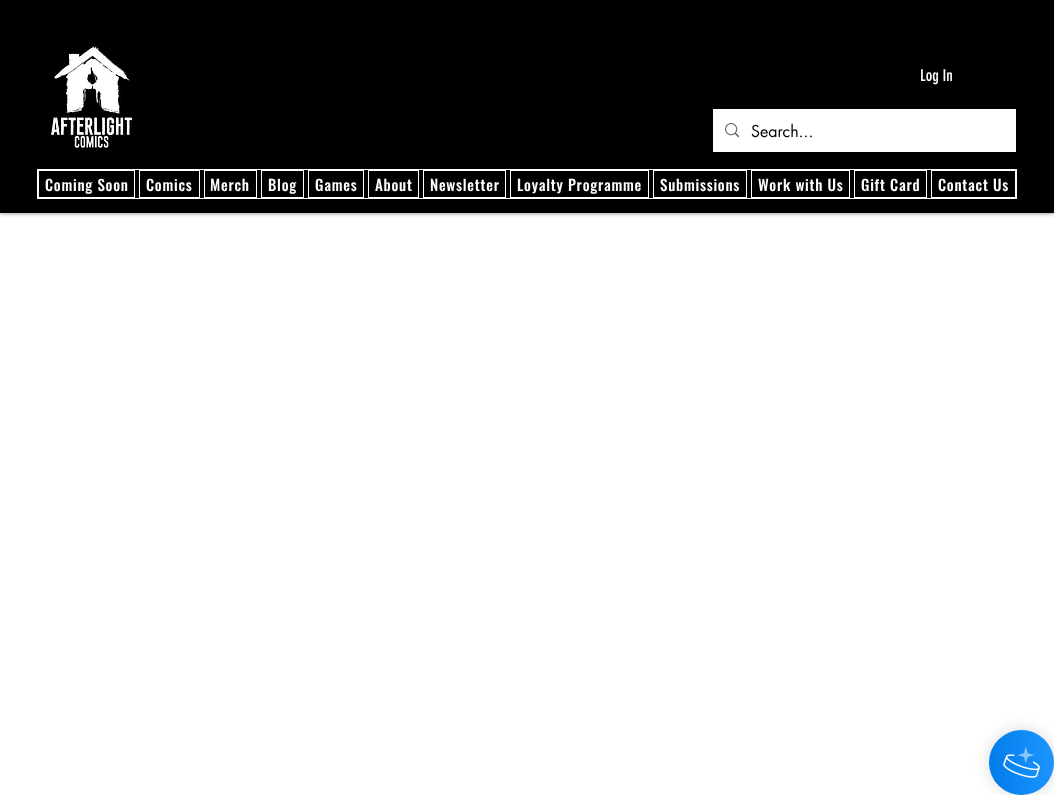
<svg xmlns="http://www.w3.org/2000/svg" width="1054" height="795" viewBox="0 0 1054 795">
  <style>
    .t1 { font: 16px 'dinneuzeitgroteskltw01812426'; fill: #fff; }
    .t2 { font: 16px futura; fill: #000; }
    .t3 { font: 500 15px Oswald; letter-spacing: 0.75px; fill: #fff; }
  </style>
  <defs>
    <linearGradient id="g1" gradientUnits="userSpaceOnUse" x1="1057" y1="759" x2="986" y2="766"><stop offset="0.05" stop-color="#1e95ff"/><stop offset="0.97" stop-color="#007cea"/></linearGradient>
  </defs>
  <rect width="100%" height="100%" fill="#fff"/>
  <rect x="0" y="0" width="1054" height="213" fill="#00000080" filter="blur(2.5px)"/>
  <rect x="0" y="0" width="1054" height="213" fill="#000"/>
  <image x="49" y="44" width="84" height="104" href="images/1.png"/>
  <text x="920" y="81" class="t1">Log In</text>
  <rect x="713" y="109" width="303" height="43" fill="#fff"/>
  <image x="725" y="123" width="14" height="15" href="images/2.png"/>
  <text x="751" y="137" class="t2">Search...</text>
  <rect x="37.5" y="169.5" width="979" height="29" fill="none" stroke="#fff"/>
  <rect x="38.5" y="170.5" width="96" height="27" fill="none" stroke="#fff"/>
  <text x="45" y="191" class="t3">Coming Soon</text>
  <rect x="139.5" y="170.5" width="60" height="27" fill="none" stroke="#fff"/>
  <text x="146" y="191" class="t3">Comics</text>
  <rect x="204.5" y="170.5" width="52" height="27" fill="none" stroke="#fff"/>
  <text x="210" y="191" class="t3">Merch</text>
  <rect x="261.5" y="170.5" width="42" height="27" fill="none" stroke="#fff"/>
  <text x="268" y="191" class="t3">Blog</text>
  <rect x="308.5" y="170.5" width="55" height="27" fill="none" stroke="#fff"/>
  <text x="315" y="191" class="t3">Games</text>
  <rect x="368.5" y="170.5" width="50" height="27" fill="none" stroke="#fff"/>
  <text x="375" y="191" class="t3">About</text>
  <rect x="423.5" y="170.5" width="82" height="27" fill="none" stroke="#fff"/>
  <text x="430" y="191" class="t3">Newsletter</text>
  <rect x="510.5" y="170.5" width="138" height="27" fill="none" stroke="#fff"/>
  <text x="517" y="191" class="t3">Loyalty Programme</text>
  <rect x="653.5" y="170.5" width="93" height="27" fill="none" stroke="#fff"/>
  <text x="660" y="191" class="t3">Submissions</text>
  <rect x="751.5" y="170.5" width="98" height="27" fill="none" stroke="#fff"/>
  <text x="758" y="191" class="t3">Work with Us</text>
  <rect x="854.5" y="170.5" width="72" height="27" fill="none" stroke="#fff"/>
  <text x="861" y="191" class="t3">Gift Card</text>
  <rect x="931.5" y="170.5" width="84" height="27" fill="none" stroke="#fff"/>
  <text x="938" y="191" class="t3">Contact Us</text>
  <rect x="989" y="730" width="65" height="65" rx="32.5" fill="#00000026" filter="blur(8px)"/>
  <circle cx="1021.5" cy="762.5" r="32.5" fill="url(#g1)"/>
  <image x="1003" y="746" width="37" height="32" href="images/3.png"/>
</svg>
